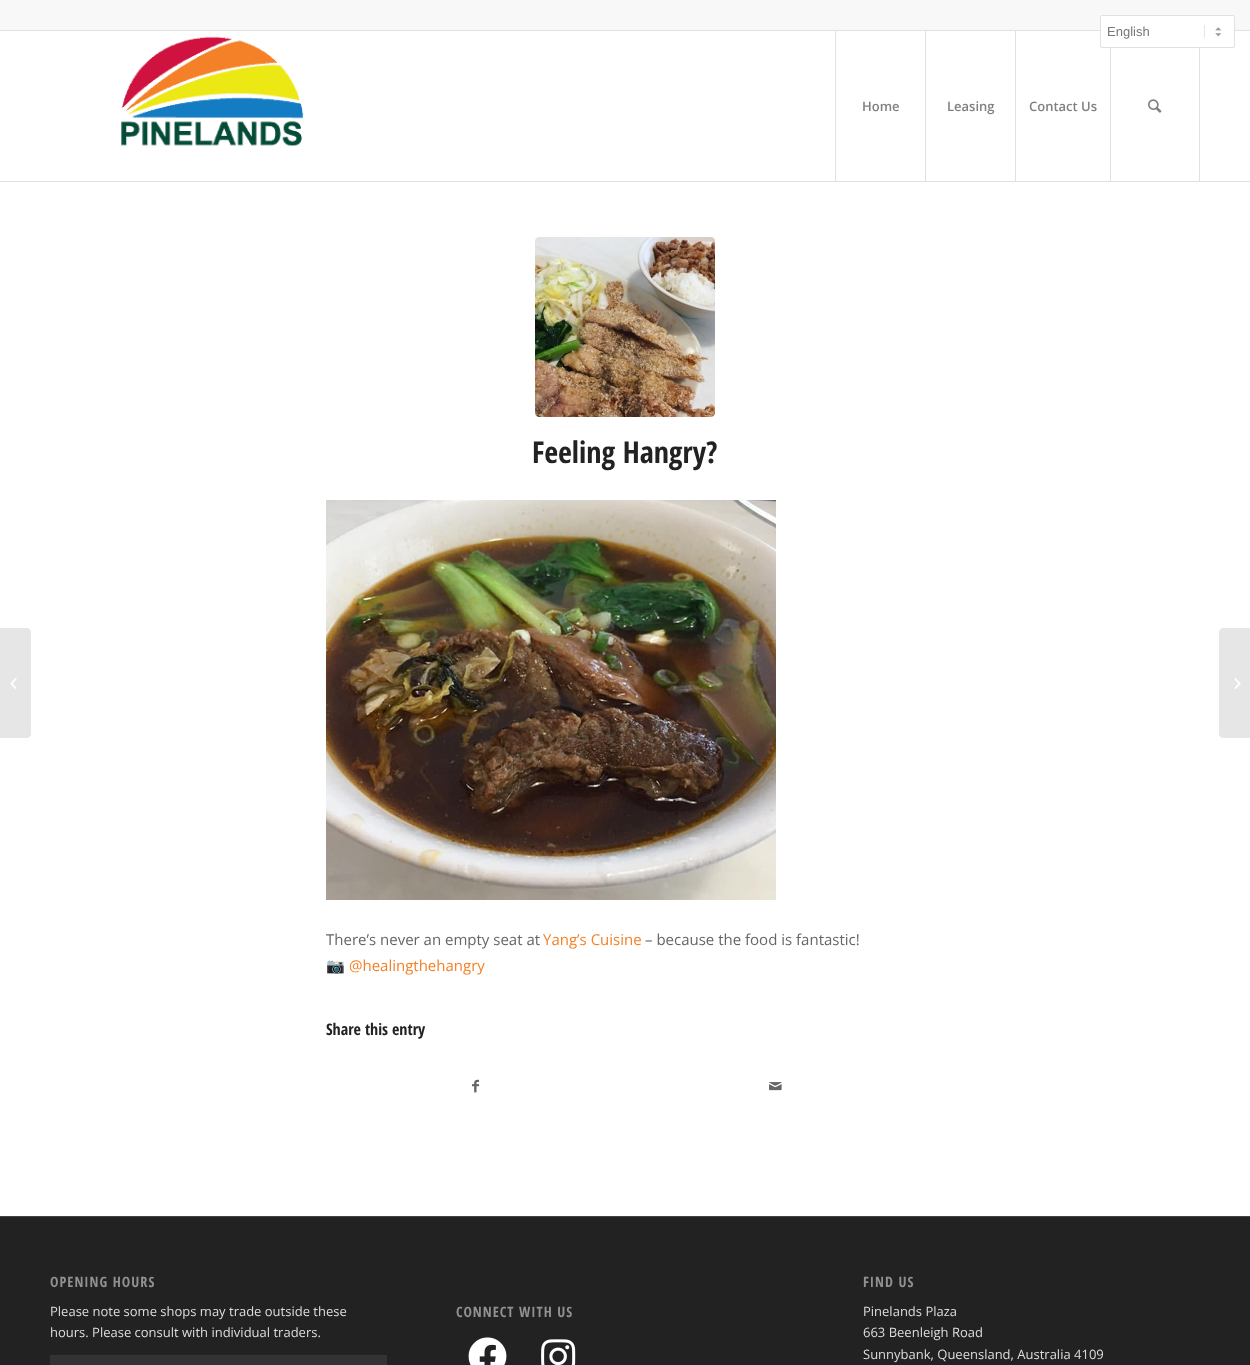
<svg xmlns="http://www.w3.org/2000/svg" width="1250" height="1365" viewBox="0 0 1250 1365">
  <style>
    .t1 { font: 13px Liberation Sans; fill: #777; }
    .t2 { font: 600 13px Open Sans; fill: #808080; }
    .t3 { font: bold 30px Open Sans Condensed; fill: #222; }
    .t4 { font: 15px Open Sans; fill: #666; }
    .t5 { font: 15px Open Sans; fill: #f58026; }
    .t6 { font: 15px Noto Color Emoji; fill: #666; }
    .t7 { font: bold 16px Open Sans Condensed; fill: #222; }
    .t8 { font: bold 14.25px Open Sans Condensed; letter-spacing: 1px; fill: #919191; }
    .t9 { font: 13px Open Sans; fill: #ddd; }
  </style>
  <rect width="100%" height="100%" fill="#fff"/>
  <rect x="0" y="0" width="1250" height="30" fill="#f8f8f8"/>
  <rect x="0" y="30" width="1250" height="1" fill="#e1e1e1"/>
  <rect x="1100" y="15" width="135" height="33" rx="2" fill="#fff"/>
  <image x="1204" y="25" width="18" height="13" href="images/1.png"/>
  <rect x="1100.5" y="15.5" width="134" height="32" rx="1.5" fill="none" stroke="#e1e1e1"/>
  <text x="1107" y="36" class="t1">English</text>
  <rect x="0" y="181" width="1250" height="1" fill="#e1e1e1"/>
  <image x="121" y="36" width="183" height="110" href="images/2.png"/>
  <rect x="835" y="31" width="1" height="150" fill="#e1e1e1"/>
  <text x="862" y="111" class="t2">Home</text>
  <rect x="925" y="31" width="1" height="150" fill="#e1e1e1"/>
  <text x="947" y="111" class="t2">Leasing</text>
  <rect x="1015" y="31" width="1" height="150" fill="#e1e1e1"/>
  <text x="1029" y="111" class="t2">Contact Us</text>
  <rect x="1199" y="48" width="1" height="133" fill="#e1e1e1"/>
  <rect x="1110" y="48" width="1" height="133" fill="#e1e1e1"/>
  <image x="1148" y="99" width="14" height="14" href="images/3.png"/>
  <path d="M0 628H27C29 628 31 630 31 632V734C31 736 29 738 27 738H0Z" fill="#e6e6e6"/>
  <image x="10" y="678" width="7" height="11" href="images/4.png"/>
  <image x="535" y="237" width="180" height="180" href="images/5.png"/>
  <text x="532" y="463" class="t3">Feeling Hangry?</text>
  <image x="326" y="500" width="450" height="400" href="images/6.png"/>
  <text x="326" y="945" class="t4">There’s never an empty seat at</text>
  <text x="543" y="945" class="t5">Yang’s Cuisine</text>
  <text x="645" y="945" class="t4">– because the food is fantastic!</text>
  <text x="326" y="971" class="t6">📷</text>
  <text x="349" y="971" class="t5">@healingthehangry</text>
  <text x="326" y="1035" class="t7">Share this entry</text>
  <image x="472" y="1079" width="7" height="14" href="images/7.png"/>
  <image x="769" y="1082" width="13" height="9" href="images/8.png"/>
  <rect x="0" y="1217" width="1250" height="148" fill="#222"/>
  <rect x="0" y="1216" width="1250" height="1" fill="#444"/>
  <text x="50" y="1287" class="t8">OPENING HOURS</text>
  <text x="50" y="1316" class="t9">Please note some shops may trade outside these</text>
  <text x="50" y="1337" class="t9">hours. Please consult with individual traders.</text>
  <rect x="50" y="1355" width="337" height="10" fill="#333"/>
  <text x="456" y="1317" class="t8">CONNECT WITH US</text>
  <image x="468" y="1337" width="39" height="28" href="images/9.png"/>
  <image x="541" y="1339" width="35" height="26" href="images/10.png"/>
  <text x="863" y="1287" class="t8">FIND US</text>
  <text x="863" y="1316" class="t9">Pinelands Plaza</text>
  <text x="863" y="1337" class="t9">663 Beenleigh Road</text>
  <text x="863" y="1359" class="t9">Sunnybank, Queensland, Australia 4109</text>
  <path d="M1223 628H1250V738H1223C1221 738 1219 736 1219 734V632C1219 630 1221 628 1223 628Z" fill="#e6e6e6"/>
  <image x="1234" y="678" width="7" height="11" href="images/11.png"/>
</svg>
